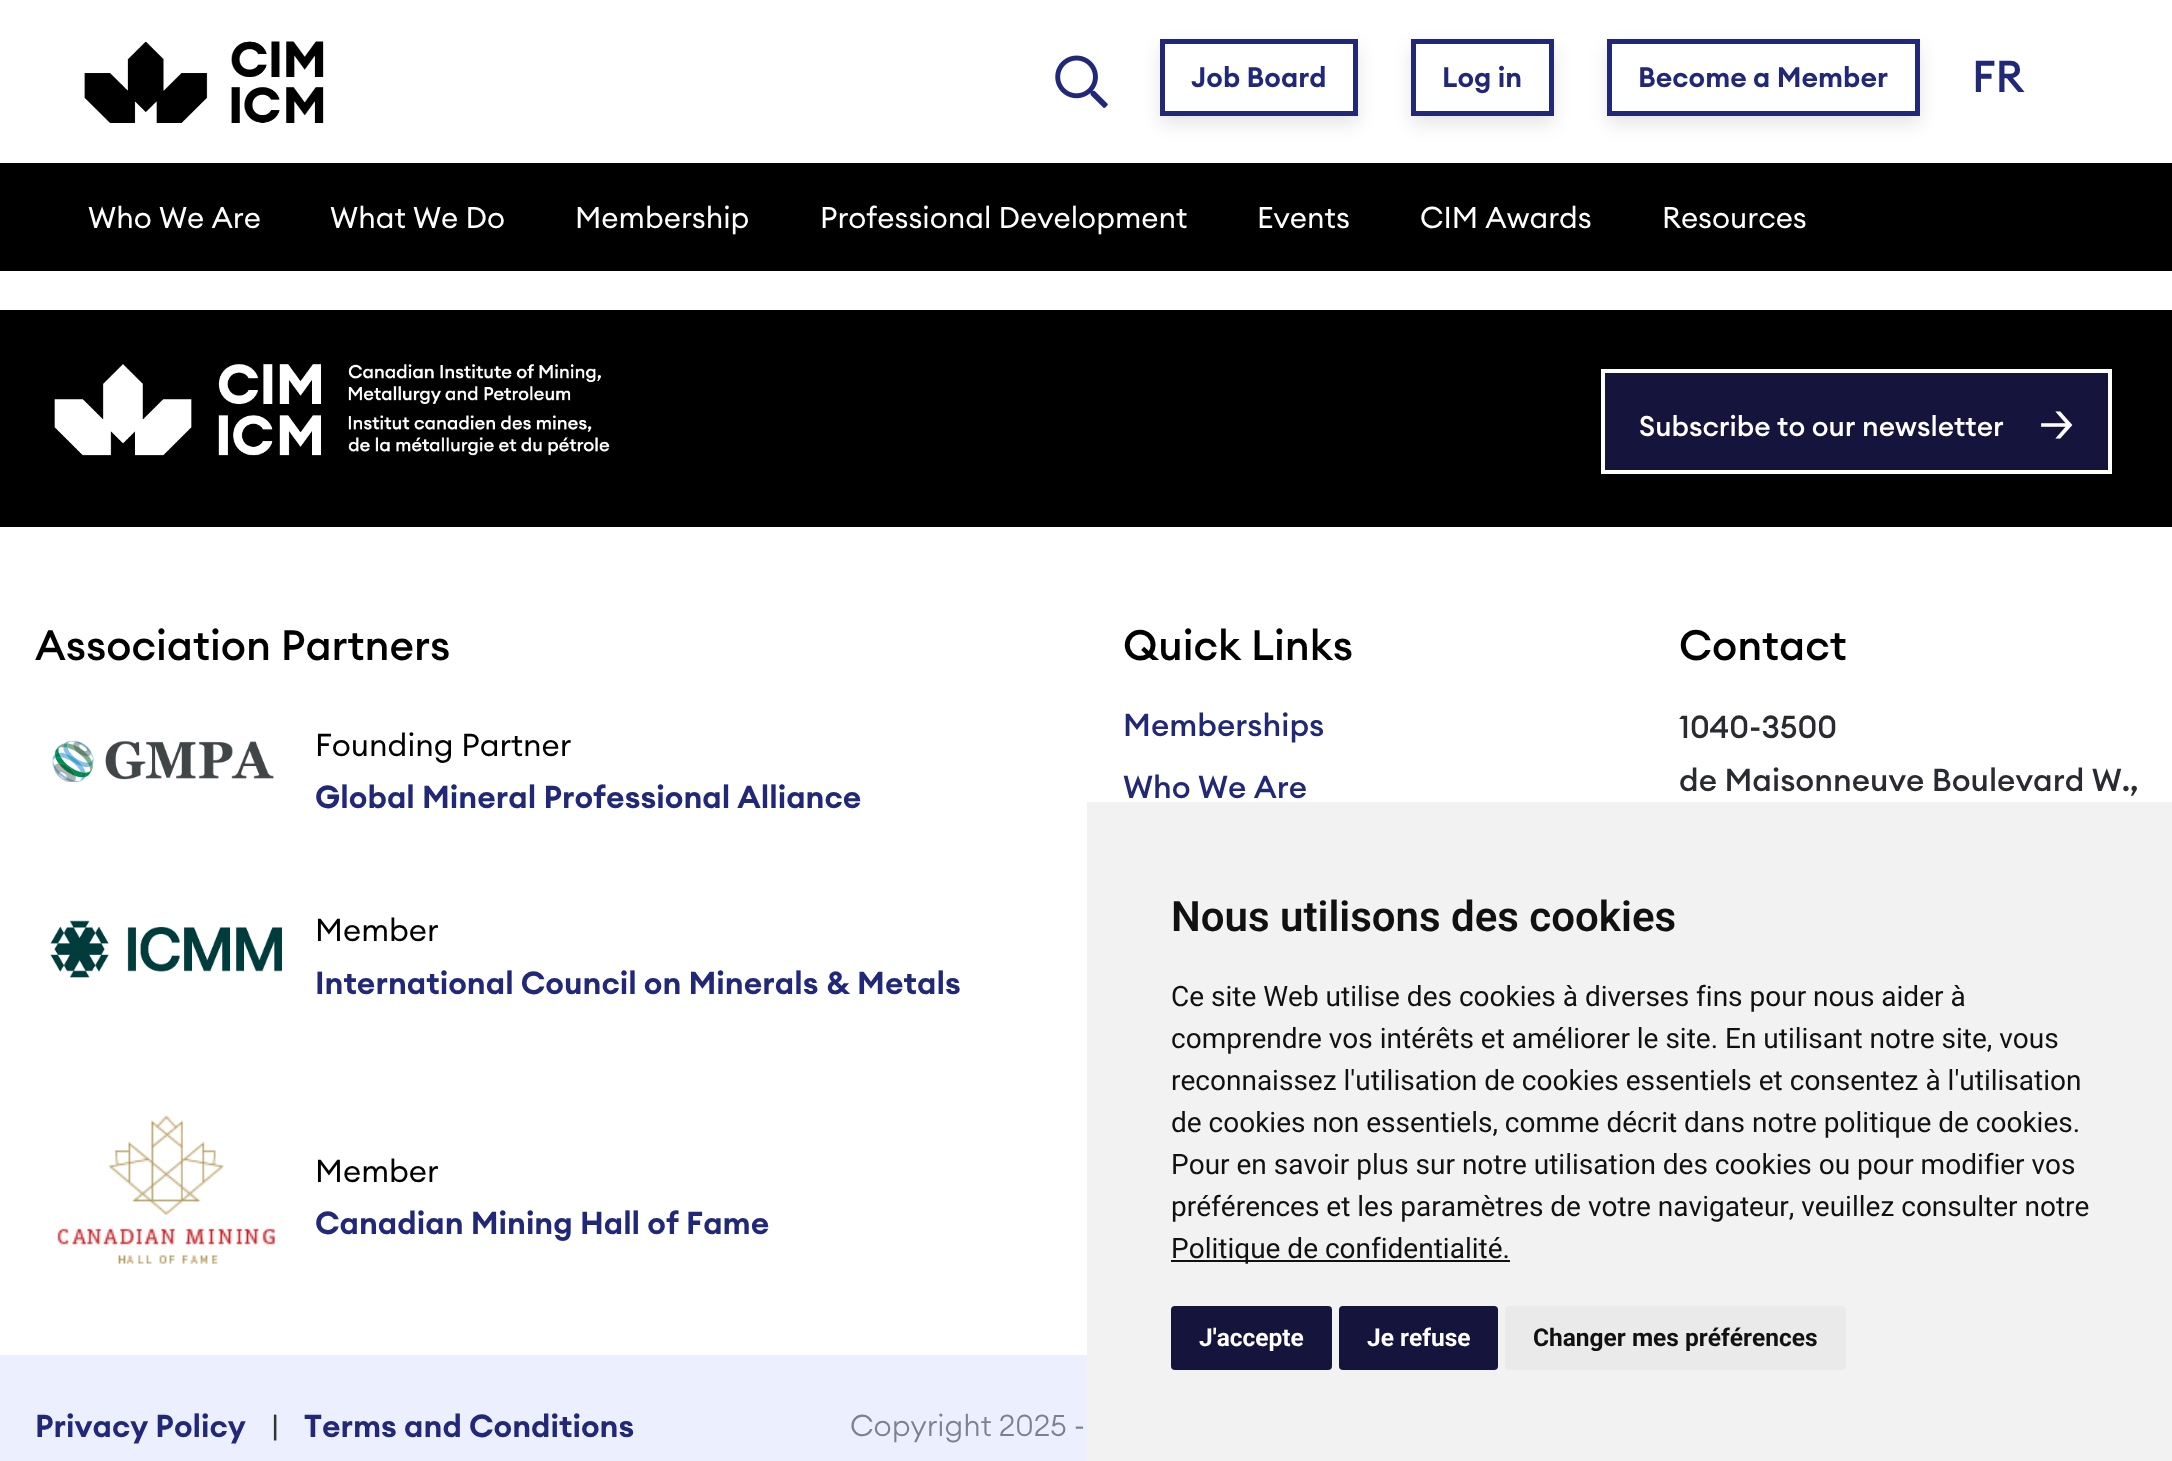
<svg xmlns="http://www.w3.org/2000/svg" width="2172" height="1461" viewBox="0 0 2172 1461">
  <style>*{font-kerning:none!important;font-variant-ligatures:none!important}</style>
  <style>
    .t1 { font: 600 28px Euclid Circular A; fill: #212878; }
    .t2 { font: 500 44px Euclid Circular A; fill: #212878; }
    .t3 { font: 29.75px Euclid Circular A; fill: #fff; }
    .t4 { font: 500 28px Euclid Circular A; fill: #fff; }
    .t5 { font: bold 42px 'Noto Sans Symbols 2'; fill: #fff; }
    .t6 { font: 500 42px Euclid Circular A; fill: #000; }
    .t7 { font: 31.5px Euclid Circular A; fill: #000; }
    .t8 { font: 600 31.5px Euclid Circular A; fill: #212878; }
    .t9 { font: 500 31.5px Euclid Circular A; fill: #212878; }
    .t10 { font: 500 31.5px Euclid Circular A; fill: #292b31; }
    .t11 { font: 31.5px Euclid Circular A; fill: #333; }
    .t12 { font: 300 29.75px Euclid Circular A; fill: #7b8193; }
    .t13 { font: 600 42px Roboto; fill: #111; }
    .t14 { font: 28px Roboto; fill: #111; }
    .t15 { font: bold 24.5px Roboto; fill: #fff; }
    .t16 { font: bold 24.5px Roboto; fill: #111; }
  </style>
  <rect width="100%" height="100%" fill="#fff"/>
  <image x="84" y="41" width="240" height="82" href="images/1.png"/>
  <image x="1055" y="55" width="53" height="53" href="images/2.png"/>
  <rect x="1160" y="47" width="198" height="77" fill="#0000001a" filter="blur(9px)"/>
  <rect x="1162.5" y="41.5" width="193" height="72" fill="#fff" stroke="#212878" stroke-width="5"/>
  <text x="1191" y="87" class="t1">Job Board</text>
  <rect x="1411" y="47" width="143" height="77" fill="#0000001a" filter="blur(9px)"/>
  <rect x="1413.5" y="41.5" width="138" height="72" fill="#fff" stroke="#212878" stroke-width="5"/>
  <text x="1442" y="87" class="t1">Log in</text>
  <rect x="1607" y="47" width="313" height="77" fill="#0000001a" filter="blur(9px)"/>
  <rect x="1609.5" y="41.5" width="308" height="72" fill="#fff" stroke="#212878" stroke-width="5"/>
  <text x="1638" y="87" class="t1">Become a Member</text>
  <text x="1972" y="92" class="t2">FR</text>
  <rect x="0" y="163" width="2172" height="108" fill="#000"/>
  <text x="88" y="228" class="t3">Who We Are</text>
  <text x="330" y="228" class="t3">What We Do</text>
  <text x="575" y="228" class="t3">Membership</text>
  <text x="820" y="228" class="t3">Professional Development</text>
  <text x="1257" y="228" class="t3">Events</text>
  <text x="1420" y="228" class="t3">CIM Awards</text>
  <text x="1662" y="228" class="t3">Resources</text>
  <rect x="0" y="310" width="2172" height="217" fill="#000"/>
  <image x="54" y="364" width="556" height="92" href="images/3.png"/>
  <rect x="1603" y="371" width="507" height="101" fill="#14143c" stroke="#fff" stroke-width="4"/>
  <text x="1639" y="436" class="t4">Subscribe to our newsletter</text>
  <text x="2039" y="439" class="t5">🡢</text>
  <text x="35" y="660" class="t6">Association Partners</text>
  <image x="52" y="740" width="222" height="42" href="images/4.png"/>
  <text x="315" y="756" class="t7">Founding Partner</text>
  <text x="315" y="808" class="t8">Global Mineral Professional Alliance</text>
  <image x="50" y="920" width="233" height="58" href="images/5.png"/>
  <text x="315" y="941" class="t7">Member</text>
  <text x="315" y="994" class="t8">International Council on Minerals &amp; Metals</text>
  <image x="57" y="1115" width="218" height="149" href="images/6.png"/>
  <text x="315" y="1182" class="t7">Member</text>
  <text x="315" y="1234" class="t8">Canadian Mining Hall of Fame</text>
  <text x="1123" y="660" class="t6">Quick Links</text>
  <text x="1123" y="736" class="t9">Memberships</text>
  <text x="1123" y="798" class="t9">Who We Are</text>
  <text x="1679" y="660" class="t6">Contact</text>
  <text x="1679" y="738" class="t10">1040-3500</text>
  <text x="1679" y="791" class="t10">de Maisonneuve Boulevard W.,</text>
  <rect x="0" y="1355" width="1087" height="106" fill="#ecf0fe"/>
  <text x="35" y="1437" class="t8">Privacy Policy</text>
  <text x="271" y="1437" class="t11">|</text>
  <text x="304" y="1437" class="t8">Terms and Conditions</text>
  <text x="850" y="1436" class="t12">Copyright 2025 -</text>
  <rect x="1087" y="802" width="1085" height="659" fill="#f2f2f2"/>
  <text x="1171" y="931" class="t13">Nous utilisons des cookies</text>
  <text x="1171" y="1006" class="t14">Ce site Web utilise des cookies à diverses fins pour nous aider à</text>
  <text x="1171" y="1048" class="t14">comprendre vos intérêts et améliorer le site. En utilisant notre site, vous</text>
  <text x="1171" y="1090" class="t14">reconnaissez l'utilisation de cookies essentiels et consentez à l'utilisation</text>
  <text x="1171" y="1132" class="t14">de cookies non essentiels, comme décrit dans notre politique de cookies.</text>
  <text x="1171" y="1174" class="t14">Pour en savoir plus sur notre utilisation des cookies ou pour modifier vos</text>
  <text x="1171" y="1216" class="t14">préférences et les paramètres de votre navigateur, veuillez consulter notre</text>
  <rect x="1171" y="1260" width="339" height="2" fill="#111"/>
  <text x="1171" y="1258" class="t14">Politique de confidentialité.</text>
  <rect x="1171" y="1306" width="161" height="64" rx="4" fill="#14143c"/>
  <text x="1199" y="1346" class="t15">J'accepte</text>
  <rect x="1339" y="1306" width="159" height="64" rx="4" fill="#14143c"/>
  <text x="1367" y="1346" class="t15">Je refuse</text>
  <rect x="1505" y="1306" width="341" height="64" rx="4" fill="#eaeaea"/>
  <text x="1533" y="1346" class="t16">Changer mes préférences</text>
</svg>
